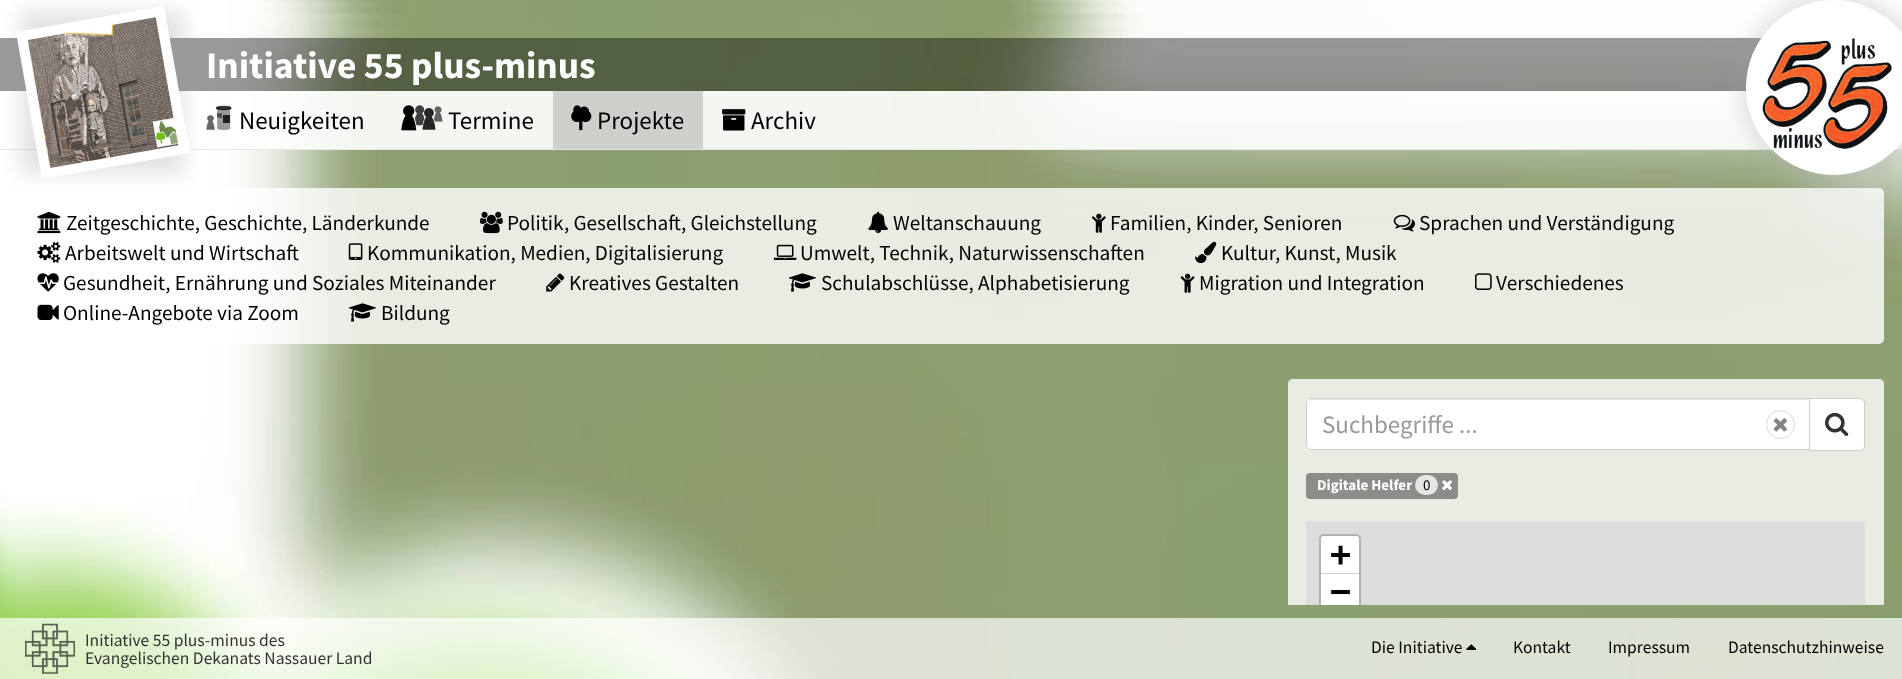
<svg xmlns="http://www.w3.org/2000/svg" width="1902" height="679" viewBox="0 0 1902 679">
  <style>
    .t1 { font: bold 37.5px Source Sans Pro; fill: #fff; }
    .t2 { font: 25px Source Sans Pro; fill: #000; }
    .t3 { font: 21.25px Source Sans Pro; fill: #000; }
    .t4 { font: 25px Source Sans Pro; fill: #999; }
    .t5 { font: bold 15px Source Sans Pro; fill: #fff; }
    .t6 { font: 15px Source Sans Pro; fill: #000; }
    .t7 { font: bold 35px DejaVu Sans Mono; fill: #000; }
    .t8 { font: 17.5px Source Sans Pro; fill: #333; }
    .t9 { font: 17.5px Source Sans Pro; fill: #000; }
  </style>
  <defs>
    <clipPath id="clip1"><rect x="1306" y="521" width="559" height="84"/></clipPath>
  </defs>
  <rect width="100%" height="100%" fill="#fff"/>
  <image x="0" y="0" width="1902" height="679" href="images/1.png"/>
  <rect x="0" y="149" width="1902" height="1" fill="#e7e7e7"/>
  <rect x="0" y="38" width="1762" height="53" fill="#00000066"/>
  <image x="206" y="115" width="9" height="15" href="images/7.png"/>
  <rect x="19" y="188" width="1865" height="156" rx="5" fill="#ffffffcc"/>
  <rect x="21" y="11" width="163" height="163" fill="#a0a0a04d" filter="blur(10px)"/>
  <path d="M16 32L164 6L190 153L42 179Z" fill="#fff"/>
  <image x="27" y="17" width="152" height="151" href="images/2.png"/>
  <text x="206" y="78" class="t1">Initiative 55 plus-minus</text>
  <rect x="227" y="91" width="1675" height="58" fill="#ffffffe6"/>
  <rect x="1740" y="-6" width="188" height="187" rx="93.5" fill="#a0a0a04d" filter="blur(10px)"/>
  <circle cx="1833.5" cy="87.5" r="87.5" fill="#fff"/>
  <image x="1762" y="38" width="130" height="111" href="images/3.png"/>
  <image x="216" y="107" width="16" height="3" href="images/5.png"/>
  <image x="216" y="105" width="16" height="4" href="images/4.png"/>
  <image x="217" y="109" width="14" height="21" href="images/6.png"/>
  <path d="M222 113.5L217 113V117.5L222 118Z" fill="#00000080"/>
  <rect x="223" y="115" width="7" height="8" fill="#1f1f1f"/>
  <text x="239" y="129" class="t2">Neuigkeiten</text>
  <image x="401" y="105" width="16" height="26" href="images/8.png"/>
  <image x="414" y="105" width="11" height="21" href="images/9.png"/>
  <image x="422" y="108" width="14" height="22" href="images/10.png"/>
  <image x="434" y="106" width="9" height="16" href="images/11.png"/>
  <text x="448" y="129" class="t2">Termine</text>
  <rect x="553" y="91" width="150" height="58" fill="#ced0cc"/>
  <image x="571" y="105" width="21" height="26" href="images/12.png"/>
  <text x="597" y="129" class="t2">Projekte</text>
  <image x="722" y="109" width="24" height="22" href="images/13.png"/>
  <text x="751" y="129" class="t2">Archiv</text>
  <image x="37" y="211" width="24" height="23" href="images/14.png"/>
  <text x="66" y="230" class="t3">Zeitgeschichte, Geschichte, Länderkunde</text>
  <image x="480" y="211" width="23" height="23" href="images/15.png"/>
  <text x="507" y="230" class="t3">Politik, Gesellschaft, Gleichstellung</text>
  <image x="868" y="211" width="20" height="22" href="images/16.png"/>
  <text x="893" y="230" class="t3">Weltanschauung</text>
  <image x="1092" y="213" width="14" height="20" href="images/17.png"/>
  <text x="1110" y="230" class="t3">Familien, Kinder, Senioren</text>
  <image x="1393" y="214" width="22" height="18" href="images/18.png"/>
  <text x="1419" y="230" class="t3">Sprachen und Verständigung</text>
  <image x="37" y="242" width="24" height="21" href="images/19.png"/>
  <text x="65" y="260" class="t3">Arbeitswelt und Wirtschaft</text>
  <image x="348" y="243" width="15" height="17" href="images/20.png"/>
  <text x="367" y="260" class="t3">Kommunikation, Medien, Digitalisierung</text>
  <image x="773" y="244" width="24" height="16" href="images/21.png"/>
  <text x="800" y="260" class="t3">Umwelt, Technik, Naturwissenschaften</text>
  <image x="1195" y="241" width="22" height="22" href="images/22.png"/>
  <text x="1221" y="260" class="t3">Kultur, Kunst, Musik</text>
  <image x="37" y="273" width="22" height="19" href="images/23.png"/>
  <text x="63" y="290" class="t3">Gesundheit, Ernährung und Soziales Miteinander</text>
  <image x="546" y="273" width="19" height="19" href="images/24.png"/>
  <text x="569" y="290" class="t3">Kreatives Gestalten</text>
  <image x="788" y="273" width="28" height="19" href="images/25.png"/>
  <text x="821" y="290" class="t3">Schulabschlüsse, Alphabetisierung</text>
  <image x="1180" y="273" width="15" height="20" href="images/26.png"/>
  <text x="1199" y="290" class="t3">Migration und Integration</text>
  <image x="1475" y="273" width="17" height="17" href="images/27.png"/>
  <text x="1496" y="290" class="t3">Verschiedenes</text>
  <image x="37" y="304" width="22" height="16" href="images/28.png"/>
  <text x="63" y="320" class="t3">Online-Angebote via Zoom</text>
  <image x="348" y="303" width="28" height="19" href="images/29.png"/>
  <text x="381" y="320" class="t3">Bildung</text>
  <path d="M1293 379H1879C1882 379 1884 381 1884 384V605H1288V384C1288 381 1290 379 1293 379Z" fill="#ffffffcc"/>
  <path d="M1311 398H1810V450H1311C1308 450 1306 448 1306 445V403C1306 400 1308 398 1311 398Z" fill="#fff"/>
  <path d="M1311 400H1809V399H1312C1309 399 1308 401 1308 404C1308 402 1309 400 1311 400Z" fill="#ececec"/>
  <path d="M1311 398.5H1809.5V449.5H1311C1308.5 449.5 1306.5 447.5 1306.5 445V403C1306.5 400.5 1308.5 398.5 1311 398.5Z" fill="none" stroke="#ccc"/>
  <text x="1322" y="433" class="t4">Suchbegriffe ...</text>
  <circle cx="1780.5" cy="424.5" r="14" fill="none" stroke="#d9d9d9"/>
  <image x="1773" y="418" width="14" height="14" href="images/30.png"/>
  <path d="M1809.5 398.5H1860C1862.5 398.5 1864.5 400.5 1864.5 403V446C1864.5 448.5 1862.5 450.5 1860 450.5H1809.5Z" fill="#fff" stroke="#ccc"/>
  <image x="1825" y="412" width="24" height="25" href="images/31.png"/>
  <rect x="1306" y="473" width="152" height="26" rx="4" fill="#8b8e88"/>
  <text x="1317" y="490" class="t5">Digitale Helfer</text>
  <rect x="1415" y="475" width="23" height="20" rx="10" fill="#e6e6e6"/>
  <text x="1423" y="490" class="t6">0</text>
  <image x="1442" y="480" width="10" height="11" href="images/32.png"/>
  <rect x="1306" y="521" width="559" height="84" fill="#ddd"/>
  <g clip-path="url(#clip1)">
    <rect x="1320.5" y="535.5" width="39" height="77" rx="3.5" fill="none" stroke="#b1b1b1" stroke-width="3"/>
  </g>
  <path d="M1323.5 536H1356.5C1358 536 1359 537 1359 538.5V574H1321V538.5C1321 537 1322 536 1323.5 536Z" fill="#fff"/>
  <rect x="1321" y="573" width="38" height="1" fill="#ccc"/>
  <text x="1330" y="566" class="t7">+</text>
  <rect x="1321" y="574" width="38" height="31" fill="#fff"/>
  <text x="1330" y="603" class="t7">−</text>
  <rect x="0" y="618" width="1902" height="61" fill="#ffffffb3"/>
  <image x="25" y="623" width="50" height="51" href="images/33.png"/>
  <text x="85" y="646" class="t8">Initiative 55 plus-minus des</text>
  <text x="85" y="664" class="t8">Evangelischen Dekanats Nassauer Land</text>
  <text x="1371" y="653" class="t9">Die Initiative</text>
  <image x="1466" y="644" width="11" height="6" href="images/34.png"/>
  <text x="1513" y="653" class="t9">Kontakt</text>
  <text x="1608" y="653" class="t9">Impressum</text>
  <text x="1728" y="653" class="t9">Datenschutzhinweise</text>
</svg>
